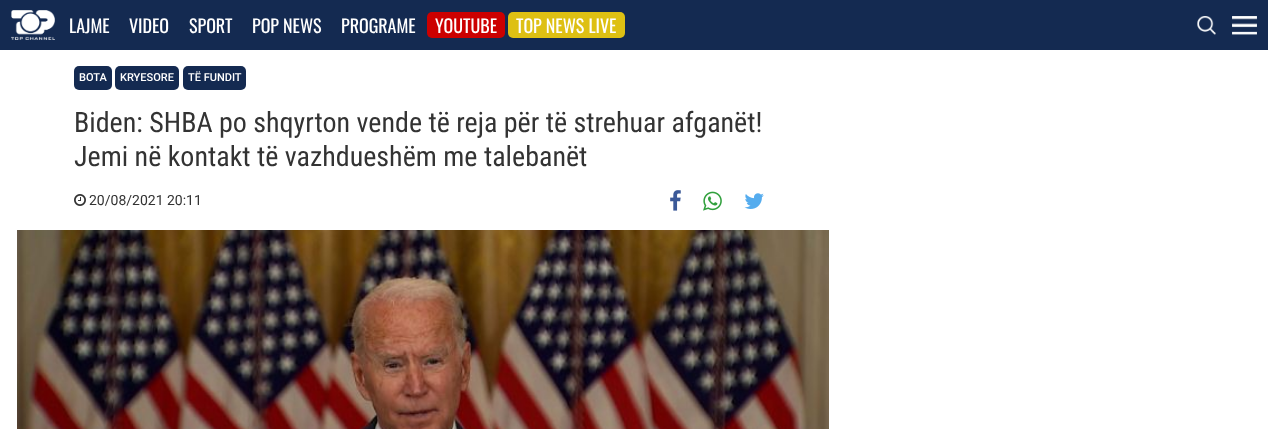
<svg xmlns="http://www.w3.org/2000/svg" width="1268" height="429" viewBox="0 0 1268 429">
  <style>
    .t1 { font: 18px Oswald; fill: #fff; }
    .t2 { font: 500 11px Roboto; fill: #fff; }
    .t3 { font: 28px Roboto Condensed; fill: #333; }
    .t4 { font: 14px Roboto; fill: #333; }
  </style>
  <rect width="100%" height="100%" fill="#fff"/>
  <rect x="0" y="0" width="1268" height="50" fill="#142a51"/>
  <image x="11" y="10" width="44" height="30" href="images/1.png"/>
  <text x="69" y="33" class="t1">LAJME</text>
  <text x="129" y="33" class="t1">VIDEO</text>
  <text x="189" y="33" class="t1">SPORT</text>
  <text x="252" y="33" class="t1">POP NEWS</text>
  <text x="341" y="33" class="t1">PROGRAME</text>
  <rect x="427" y="12" width="78" height="26" rx="5" fill="#c00"/>
  <text x="435" y="33" class="t1">YOUTUBE</text>
  <rect x="508" y="12" width="117" height="26" rx="5" fill="#dec013"/>
  <text x="516" y="33" class="t1">TOP NEWS LIVE</text>
  <image x="1197" y="16" width="19" height="19" href="images/2.png"/>
  <image x="1232" y="16" width="25" height="19" href="images/3.png"/>
  <rect x="74" y="66" width="38" height="24" rx="5" fill="#142a51"/>
  <text x="79" y="81" class="t2">BOTA</text>
  <rect x="115" y="66" width="64" height="24" rx="5" fill="#142a51"/>
  <text x="120" y="81" class="t2">KRYESORE</text>
  <rect x="183" y="66" width="63" height="24" rx="5" fill="#142a51"/>
  <text x="188" y="81" class="t2">TË FUNDIT</text>
  <text x="74" y="132" class="t3">Biden: SHBA po shqyrton vende të reja për të strehuar afganët!</text>
  <text x="74" y="166" class="t3">Jemi në kontakt të vazhdueshëm me talebanët</text>
  <image x="74" y="194" width="12" height="12" href="images/4.png"/>
  <text x="89" y="205" class="t4">20/08/2021 20:11</text>
  <image x="670" y="190" width="11" height="21" href="images/5.png"/>
  <image x="703" y="191" width="19" height="20" href="images/6.png"/>
  <image x="744" y="193" width="20" height="16" href="images/7.png"/>
  <image x="17" y="230" width="812" height="199" href="images/8.png"/>
</svg>
